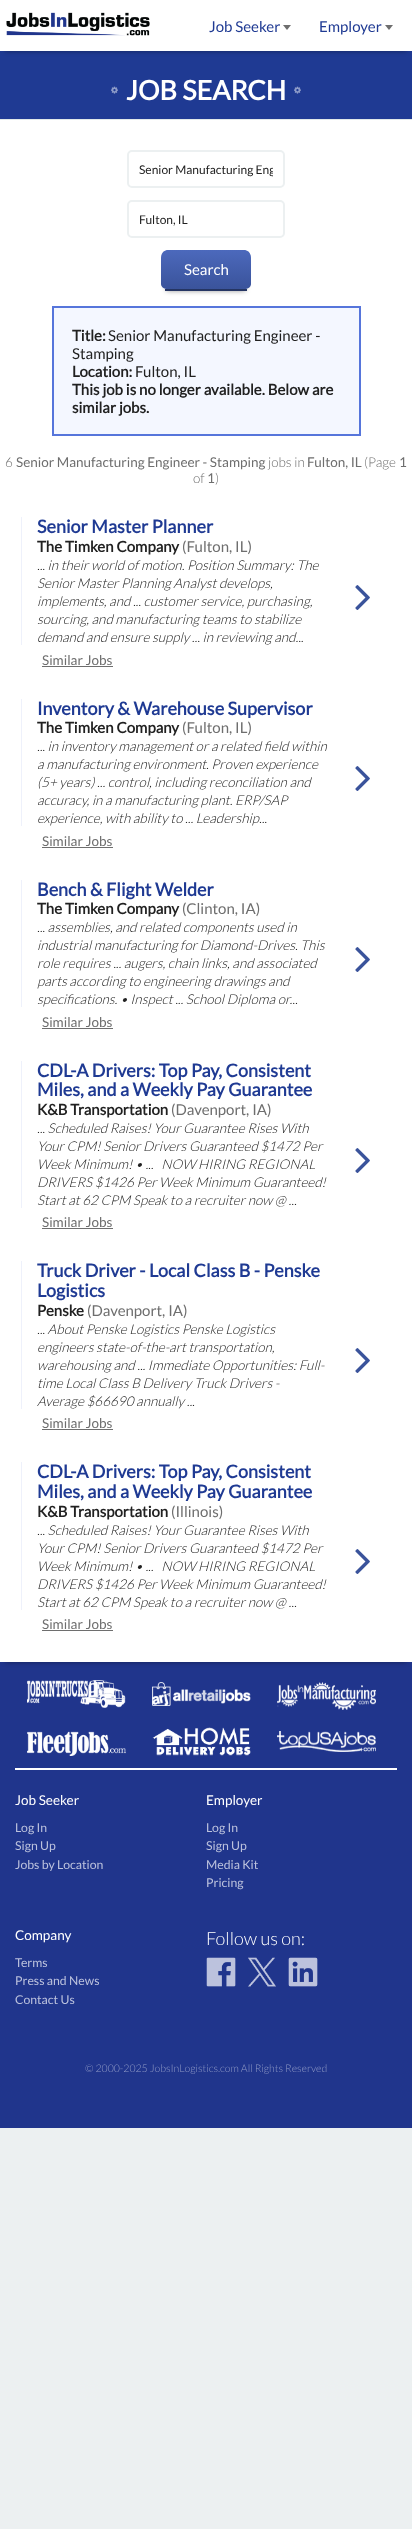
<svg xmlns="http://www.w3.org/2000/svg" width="412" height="2529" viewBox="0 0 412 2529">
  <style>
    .t1 { font: 15px Lato; fill: #1f3a93; }
    .t2 { font: bold 27px Lato; fill: #fff; }
    .t3 { font: 12px Lato; fill: #212121; }
    .t4 { font: 15px Lato; fill: #fff; }
    .t5 { font: bold 15px Lato; fill: #212121; }
    .t6 { font: 15px Lato; fill: #212121; }
    .t7 { font: 300 13.5px Lato; fill: #6e6e6e; }
    .t8 { font: 13.5px Lato; fill: #6e6e6e; }
    .t9 { font: bold 18px Lato; fill: #1f3a93; }
    .t10 { font: 15px Lato; fill: #6e6e6e; }
    .t11 { font: italic 300 13.5px Lato; fill: #212121; }
    .t12 { font: 13.5px Lato; fill: #fff; }
    .t13 { font: 12.25px Lato; fill: #bcc2dd; }
    .t14 { font: 300 18px Lato; fill: #fff; }
    .t15 { font: 300 10.5px Lato; fill: #909ac6; }
  </style>
  <defs>
    <clipPath id="clip1"><rect x="139" y="162" width="134" height="15"/></clipPath>
    <linearGradient id="g1" gradientUnits="userSpaceOnUse" x1="206" y1="250" x2="206" y2="289"><stop offset="0" stop-color="#4c69bc"/><stop offset="1" stop-color="#3a539b"/></linearGradient>
  </defs>
  <rect width="100%" height="100%" fill="#ecf0f1"/>
  <rect x="0" y="1662" width="412" height="466" fill="#20358c"/>
  <rect x="5" y="61" width="402" height="1601" fill="#00000066" filter="blur(2.5px)"/>
  <rect x="0" y="51" width="412" height="68" fill="#1f3a93"/>
  <rect x="5" y="10" width="402" height="41" fill="#00000066" filter="blur(2.5px)"/>
  <rect x="0" y="0" width="412" height="51" fill="#fff"/>
  <image x="6" y="12" width="144" height="24" href="images/1.png"/>
  <text x="209" y="32" class="t1">Job Seeker</text>
  <path d="M283 25H291L287 30Z" fill="#6e6e6e"/>
  <text x="319" y="32" class="t1">Employer</text>
  <path d="M385 25H393L389 30Z" fill="#6e6e6e"/>
  <rect x="0" y="120" width="412" height="1542" fill="#fff"/>
  <rect x="0" y="119" width="412" height="1" fill="#e0e7e8"/>
  <image x="111" y="86" width="7" height="8" href="images/2.png"/>
  <text x="126" y="100" class="t2">JOB SEARCH</text>
  <image x="294" y="86" width="7" height="8" href="images/2.png"/>
  <rect x="128" y="151" width="156" height="36" rx="4" fill="none" stroke="#ecf0f1" stroke-width="2"/>
  <g clip-path="url(#clip1)">
    <text x="139" y="174" class="t3">Senior Manufacturing Eng</text>
  </g>
  <rect x="128" y="201" width="156" height="36" rx="4" fill="none" stroke="#ecf0f1" stroke-width="2"/>
  <text x="139" y="224" class="t3">Fulton, IL</text>
  <rect x="166" y="260" width="80" height="31" rx="2.5" fill="#00000066" filter="blur(2.5px)"/>
  <path d="M168 250H244C248 250 251 253 251 258V284C251 287 248 289 244 289H168C164 289 161 287 161 284V258C161 253 164 250 168 250Z" fill="url(#g1)"/>
  <rect x="165" y="289" width="82" height="2" fill="#253563"/>
  <text x="184" y="275" class="t4">Search</text>
  <rect x="53" y="307" width="307" height="128" fill="#f4f7ff" stroke="#5675db" stroke-width="2"/>
  <text x="72" y="341" class="t5">Title:</text>
  <text x="108" y="341" class="t6">Senior Manufacturing Engineer -</text>
  <text x="72" y="359" class="t6">Stamping</text>
  <text x="72" y="377" class="t5">Location:</text>
  <text x="135" y="377" class="t6">Fulton, IL</text>
  <text x="72" y="395" class="t5">This job is no longer available. Below are</text>
  <text x="72" y="413" class="t5">similar jobs.</text>
  <text x="5" y="467" class="t7">6</text>
  <text x="16" y="467" class="t8">Senior Manufacturing Engineer - Stamping</text>
  <text x="268" y="467" class="t7">jobs in</text>
  <text x="307" y="467" class="t8">Fulton, IL</text>
  <text x="364" y="467" class="t7">(Page</text>
  <text x="399" y="467" class="t8">1</text>
  <text x="193" y="483" class="t7">of</text>
  <text x="207" y="483" class="t8">1</text>
  <text x="215" y="483" class="t7">)</text>
  <rect x="21" y="517" width="1" height="128" fill="#eef1fb"/>
  <text x="37" y="533" class="t9">Senior Master Planner</text>
  <text x="37" y="552" class="t5">The Timken Company</text>
  <text x="182" y="552" class="t10">(Fulton, IL)</text>
  <text x="37" y="570" class="t11">... in their world of motion. Position Summary: The</text>
  <text x="37" y="588" class="t11">Senior Master Planning Analyst develops,</text>
  <text x="37" y="606" class="t11">implements, and ... customer service, purchasing,</text>
  <text x="37" y="624" class="t11">sourcing, and manufacturing teams to stabilize</text>
  <text x="37" y="642" class="t11">demand and ensure supply ... in reviewing and...</text>
  <image x="355" y="585" width="15" height="25" href="images/3.png"/>
  <text x="42" y="665" class="t8">Similar Jobs</text>
  <rect x="42" y="666" width="71" height="1" fill="#6e6e6e"/>
  <rect x="21" y="699" width="1" height="127" fill="#eef1fb"/>
  <text x="37" y="715" class="t9">Inventory &amp; Warehouse Supervisor</text>
  <text x="37" y="733" class="t5">The Timken Company</text>
  <text x="182" y="733" class="t10">(Fulton, IL)</text>
  <text x="37" y="751" class="t11">... in inventory management or a related field within</text>
  <text x="37" y="769" class="t11">a manufacturing environment. Proven experience</text>
  <text x="37" y="787" class="t11">(5+ years) ... control, including reconciliation and</text>
  <text x="37" y="805" class="t11">accuracy, in a manufacturing plant. ERP/SAP</text>
  <text x="37" y="823" class="t11">experience, with ability to ... Leadership...</text>
  <image x="355" y="766" width="15" height="25" href="images/3.png"/>
  <text x="42" y="846" class="t8">Similar Jobs</text>
  <rect x="42" y="847" width="71" height="1" fill="#6e6e6e"/>
  <rect x="21" y="880" width="1" height="127" fill="#eef1fb"/>
  <text x="37" y="896" class="t9">Bench &amp; Flight Welder</text>
  <text x="37" y="914" class="t5">The Timken Company</text>
  <text x="182" y="914" class="t10">(Clinton, IA)</text>
  <text x="37" y="932" class="t11">... assemblies, and related components used in</text>
  <text x="37" y="950" class="t11">industrial manufacturing for Diamond-Drives. This</text>
  <text x="37" y="968" class="t11">role requires ... augers, chain links, and associated</text>
  <text x="37" y="986" class="t11">parts according to engineering drawings and</text>
  <text x="37" y="1004" class="t11">specifications. • Inspect ... School Diploma or...</text>
  <image x="355" y="947" width="15" height="25" href="images/3.png"/>
  <text x="42" y="1027" class="t8">Similar Jobs</text>
  <rect x="42" y="1028" width="71" height="1" fill="#6e6e6e"/>
  <rect x="21" y="1061" width="1" height="147" fill="#eef1fb"/>
  <text x="37" y="1077" class="t9">CDL-A Drivers: Top Pay, Consistent</text>
  <text x="37" y="1096" class="t9">Miles, and a Weekly Pay Guarantee</text>
  <text x="37" y="1115" class="t5">K&amp;B Transportation</text>
  <text x="171" y="1115" class="t10">(Davenport, IA)</text>
  <text x="37" y="1133" class="t11">... Scheduled Raises! Your Guarantee Rises With</text>
  <text x="37" y="1151" class="t11">Your CPM! Senior Drivers Guaranteed $1472 Per</text>
  <text x="37" y="1169" class="t11" xml:space="preserve">Week Minimum! • ...   NOW HIRING REGIONAL</text>
  <text x="37" y="1187" class="t11">DRIVERS $1426 Per Week Minimum Guaranteed!</text>
  <text x="37" y="1205" class="t11">Start at 62 CPM Speak to a recruiter now @ ...</text>
  <image x="355" y="1148" width="15" height="25" href="images/3.png"/>
  <text x="42" y="1227" class="t8">Similar Jobs</text>
  <rect x="42" y="1228" width="71" height="1" fill="#6e6e6e"/>
  <rect x="21" y="1261" width="1" height="148" fill="#eef1fb"/>
  <text x="37" y="1277" class="t9">Truck Driver - Local Class B - Penske</text>
  <text x="37" y="1297" class="t9">Logistics</text>
  <text x="37" y="1316" class="t5">Penske</text>
  <text x="87" y="1316" class="t10">(Davenport, IA)</text>
  <text x="37" y="1334" class="t11">... About Penske Logistics Penske Logistics</text>
  <text x="37" y="1352" class="t11">engineers state-of-the-art transportation,</text>
  <text x="37" y="1370" class="t11">warehousing and ... Immediate Opportunities: Full-</text>
  <text x="37" y="1388" class="t11">time Local Class B Delivery Truck Drivers -</text>
  <text x="37" y="1406" class="t11">Average $66690 annually ...</text>
  <image x="355" y="1348" width="15" height="25" href="images/3.png"/>
  <text x="42" y="1428" class="t8">Similar Jobs</text>
  <rect x="42" y="1429" width="71" height="1" fill="#6e6e6e"/>
  <rect x="21" y="1462" width="1" height="148" fill="#eef1fb"/>
  <text x="37" y="1478" class="t9">CDL-A Drivers: Top Pay, Consistent</text>
  <text x="37" y="1498" class="t9">Miles, and a Weekly Pay Guarantee</text>
  <text x="37" y="1517" class="t5">K&amp;B Transportation</text>
  <text x="171" y="1517" class="t10">(Illinois)</text>
  <text x="37" y="1535" class="t11">... Scheduled Raises! Your Guarantee Rises With</text>
  <text x="37" y="1553" class="t11">Your CPM! Senior Drivers Guaranteed $1472 Per</text>
  <text x="37" y="1571" class="t11" xml:space="preserve">Week Minimum! • ...   NOW HIRING REGIONAL</text>
  <text x="37" y="1589" class="t11">DRIVERS $1426 Per Week Minimum Guaranteed!</text>
  <text x="37" y="1607" class="t11">Start at 62 CPM Speak to a recruiter now @ ...</text>
  <image x="355" y="1549" width="15" height="25" href="images/3.png"/>
  <text x="42" y="1629" class="t8">Similar Jobs</text>
  <rect x="42" y="1630" width="71" height="1" fill="#6e6e6e"/>
  <rect x="15" y="1768" width="382" height="2" fill="#fff"/>
  <image x="27" y="1680" width="99" height="28" href="images/4.png"/>
  <image x="152" y="1682" width="99" height="24" href="images/5.png"/>
  <image x="277" y="1682" width="99" height="28" href="images/6.png"/>
  <image x="27" y="1731" width="99" height="25" href="images/7.png"/>
  <image x="152" y="1727" width="99" height="29" href="images/8.png"/>
  <image x="277" y="1731" width="99" height="21" href="images/9.png"/>
  <text x="15" y="1805" class="t12">Job Seeker</text>
  <text x="15" y="1832" class="t13">Log In</text>
  <text x="15" y="1850" class="t13">Sign Up</text>
  <text x="15" y="1869" class="t13">Jobs by Location</text>
  <text x="206" y="1805" class="t12">Employer</text>
  <text x="206" y="1832" class="t13">Log In</text>
  <text x="206" y="1850" class="t13">Sign Up</text>
  <text x="206" y="1869" class="t13">Media Kit</text>
  <text x="206" y="1887" class="t13">Pricing</text>
  <text x="15" y="1940" class="t12">Company</text>
  <text x="15" y="1967" class="t13">Terms</text>
  <text x="15" y="1985" class="t13">Press and News</text>
  <text x="15" y="2004" class="t13">Contact Us</text>
  <text x="206" y="1945" class="t14">Follow us on:</text>
  <image x="206" y="1957" width="30" height="30" href="images/10.png"/>
  <image x="248" y="1957" width="28" height="30" href="images/11.png"/>
  <image x="288" y="1957" width="30" height="30" href="images/12.png"/>
  <text x="85" y="2072" class="t15">© 2000-2025 JobsInLogistics.com All Rights Reserved</text>
</svg>
